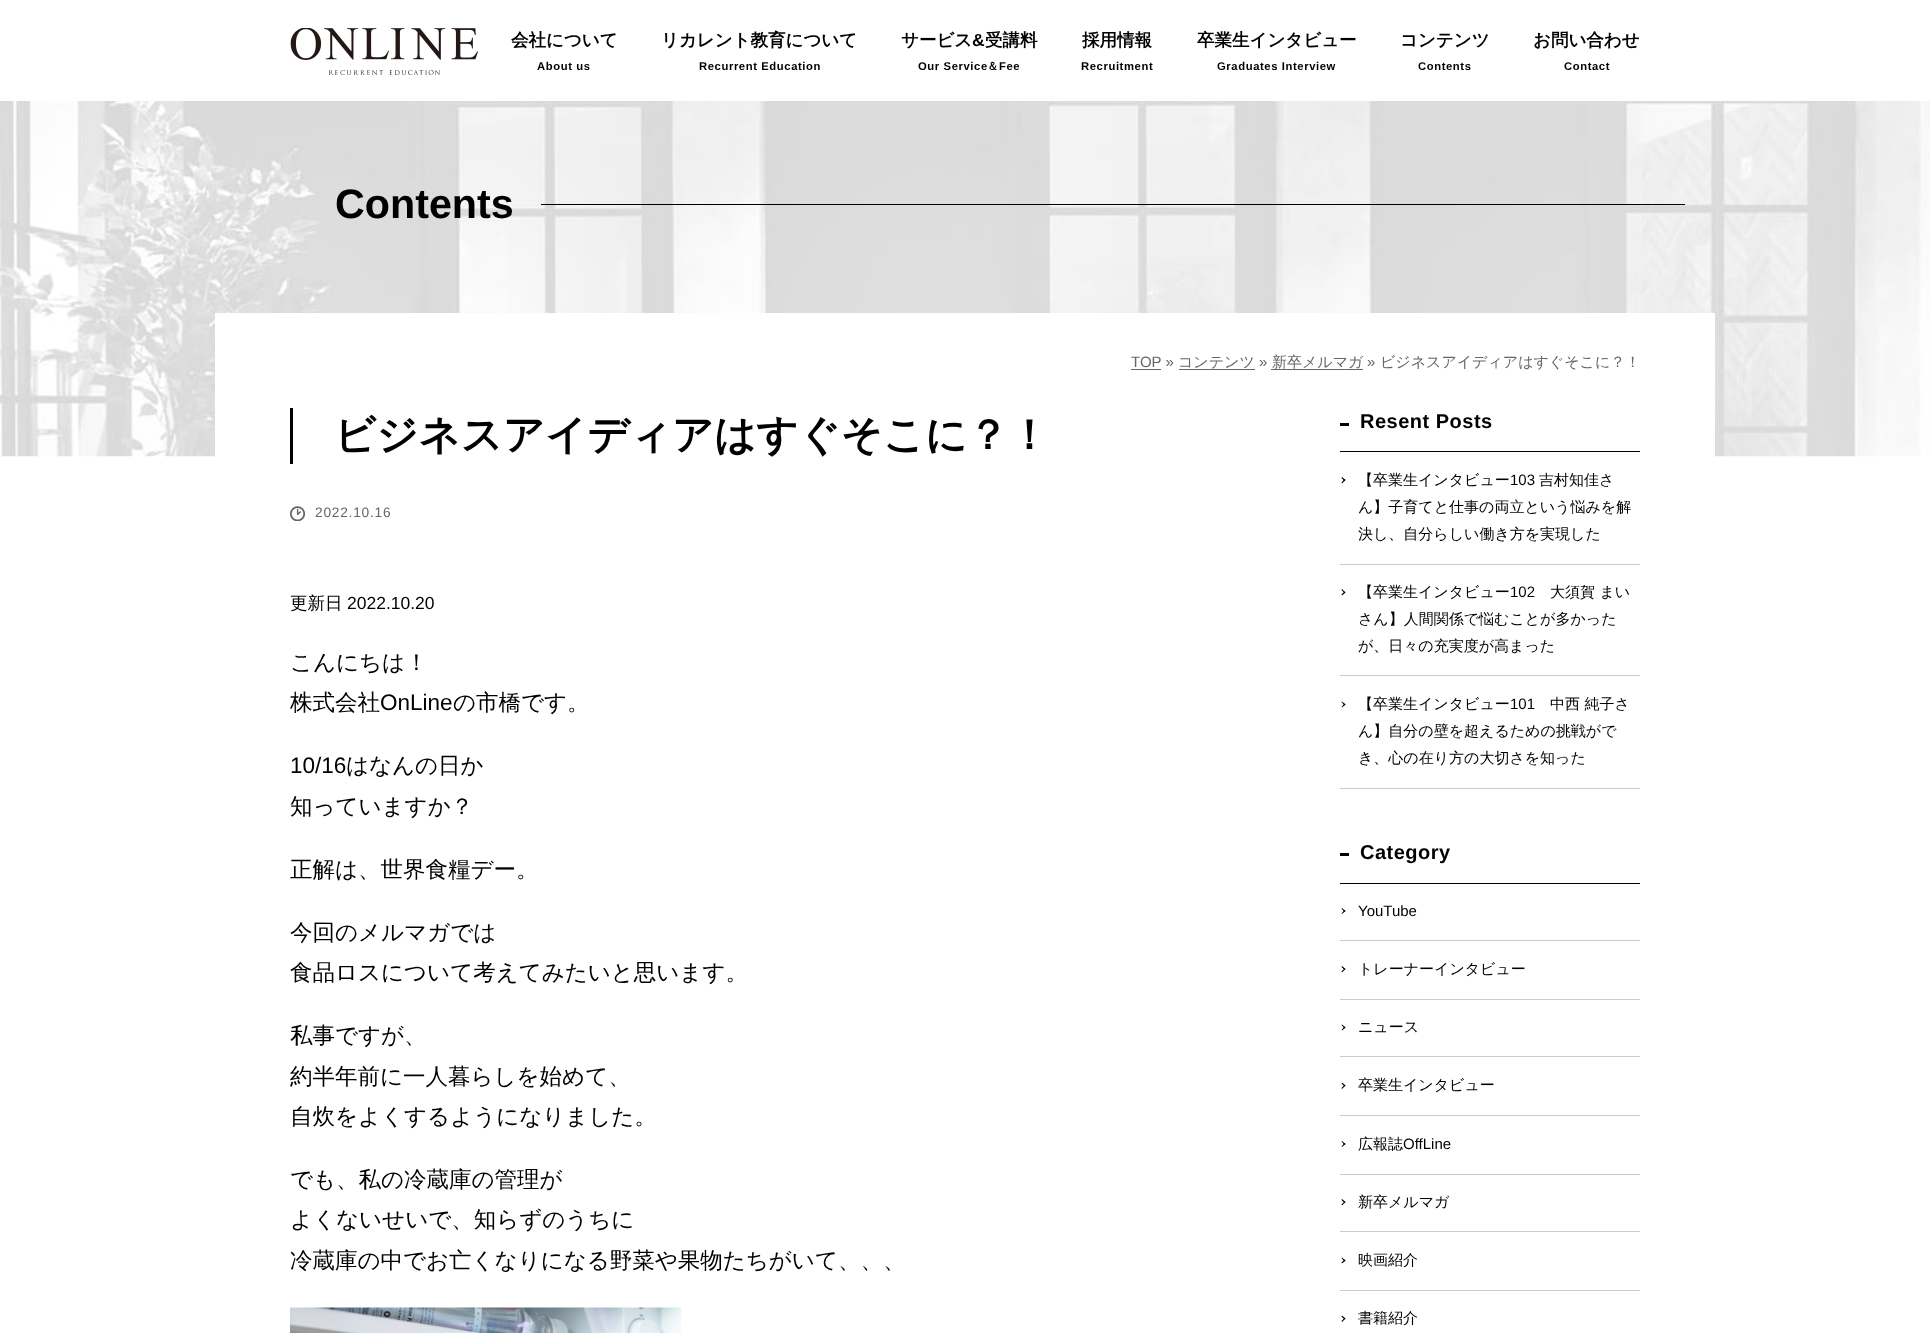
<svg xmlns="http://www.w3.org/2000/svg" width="1930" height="1333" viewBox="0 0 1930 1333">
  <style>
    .t1 { font: bold 17.5px WenQuanYi Zen Hei; fill: #000; }
    .t2 { font: bold 11.25px Liberation Sans; letter-spacing: 0.6px; fill: #000; }
    .t3 { font: bold 17.5px Liberation Sans; fill: #000; }
    .t4 { font: bold 11.25px WenQuanYi Zen Hei; letter-spacing: 0.6px; fill: #000; }
    .t5 { font: bold 41.25px Liberation Sans; fill: #000; }
    .t6 { font: 15px Liberation Sans; fill: #666; }
    .t7 { font: 500 15px WenQuanYi Zen Hei; fill: #666; }
    .t8 { font: bold 41.25px WenQuanYi Zen Hei; fill: #000; }
    .t9 { font: 13.75px Liberation Sans; letter-spacing: 0.75px; fill: #666; }
    .t10 { font: 500 17.5px WenQuanYi Zen Hei; fill: #000; }
    .t11 { font: 17.5px Liberation Sans; fill: #000; }
    .t12 { font: 500 22.5px WenQuanYi Zen Hei; fill: #000; }
    .t13 { font: 22.5px Liberation Sans; fill: #000; }
    .t14 { font: bold 20px Liberation Sans; letter-spacing: 0.5px; fill: #000; }
    .t15 { font: 500 15px WenQuanYi Zen Hei; fill: #000; }
    .t16 { font: 15px Liberation Sans; fill: #000; }
  </style>
  <rect width="100%" height="100%" fill="#fff"/>
  <image x="290" y="28" width="188" height="47" href="images/1.png"/>
  <text x="511" y="46" class="t1">会社について</text>
  <text x="537" y="70" class="t2">About us</text>
  <text x="661" y="46" class="t1">リカレント教育について</text>
  <text x="699" y="70" class="t2">Recurrent Education</text>
  <text x="901" y="46" class="t1">サービス</text>
  <text x="972" y="46" class="t3">&amp;</text>
  <text x="985" y="46" class="t1">受講料</text>
  <text x="918" y="70" class="t2">Our Service</text>
  <text x="987" y="70" class="t4">＆</text>
  <text x="999" y="70" class="t2">Fee</text>
  <text x="1082" y="46" class="t1">採用情報</text>
  <text x="1081" y="70" class="t2">Recruitment</text>
  <text x="1197" y="46" class="t1">卒業生インタビュー</text>
  <text x="1217" y="70" class="t2">Graduates Interview</text>
  <text x="1400" y="46" class="t1">コンテンツ</text>
  <text x="1418" y="70" class="t2">Contents</text>
  <text x="1533" y="46" class="t1">お問い合わせ</text>
  <text x="1564" y="70" class="t2">Contact</text>
  <image x="0" y="101" width="1930" height="356" href="images/2.png"/>
  <text x="335" y="218" class="t5">Contents</text>
  <rect x="541" y="204" width="1144" height="1" fill="#000"/>
  <rect x="215" y="313" width="1500" height="144" fill="#fff"/>
  <text x="1131" y="367" class="t6">TOP »</text>
  <rect x="1131" y="369" width="30" height="1" fill="#666"/>
  <text x="1178" y="367" class="t7">コンテンツ</text>
  <rect x="1179" y="369" width="76" height="1" fill="#666"/>
  <text x="1259" y="367" class="t6">»</text>
  <text x="1272" y="367" class="t7">新卒メルマガ</text>
  <rect x="1271" y="369" width="92" height="1" fill="#666"/>
  <text x="1367" y="367" class="t6">»</text>
  <text x="1380" y="367" class="t7">ビジネスアイディアはすぐそこに？！</text>
  <rect x="290" y="408" width="3" height="56" fill="#000"/>
  <text x="334" y="449" class="t8">ビジネスアイディアはすぐそこに？！</text>
  <image x="290" y="506" width="15" height="15" href="images/3.png"/>
  <text x="315" y="517" class="t9">2022.10.16</text>
  <text x="290" y="609" class="t10">更新日</text>
  <text x="347" y="609" class="t11">2022.10.20</text>
  <text x="290" y="670" class="t12">こんにちは！</text>
  <text x="290" y="710" class="t12">株式会社</text>
  <text x="380" y="710" class="t13">OnLine</text>
  <text x="453" y="710" class="t12">の市橋です。</text>
  <text x="290" y="773" class="t13">10/16</text>
  <text x="346" y="773" class="t12">はなんの日か</text>
  <text x="290" y="814" class="t12">知っていますか？</text>
  <text x="290" y="877" class="t12">正解は、世界食糧デー。</text>
  <text x="290" y="940" class="t12">今回のメルマガでは</text>
  <text x="290" y="980" class="t12">食品ロスについて考えてみたいと思います。</text>
  <text x="290" y="1043" class="t12">私事ですが、</text>
  <text x="290" y="1084" class="t12">約半年前に一人暮らしを始めて、</text>
  <text x="290" y="1124" class="t12">自炊をよくするようになりました。</text>
  <text x="290" y="1187" class="t12">でも、私の冷蔵庫の管理が</text>
  <text x="290" y="1227" class="t12">よくないせいで、知らずのうちに</text>
  <text x="290" y="1268" class="t12">冷蔵庫の中でお亡くなりになる野菜や果物たちがいて、、、</text>
  <image x="290" y="1307" width="392" height="26" href="images/4.png"/>
  <rect x="1340" y="451" width="300" height="1" fill="#000"/>
  <rect x="1340" y="423" width="9" height="3" fill="#000"/>
  <text x="1360" y="428" class="t14">Resent Posts</text>
  <rect x="1340" y="564" width="300" height="1" fill="#ccc"/>
  <path d="M1342 477L1345.5 480L1344.5 481L1341.5 478Z" fill="#000"/>
  <path d="M1344.5 479L1345.5 480L1342 483.5L1341.5 482.5Z" fill="#000"/>
  <text x="1358" y="485" class="t15">【卒業生インタビュー</text>
  <text x="1510" y="485" class="t16">103</text>
  <text x="1539" y="485" class="t15">吉村知佳さ</text>
  <text x="1358" y="512" class="t15">ん】子育てと仕事の両立という悩みを解</text>
  <text x="1358" y="539" class="t15">決し、自分らしい働き方を実現した</text>
  <rect x="1340" y="675" width="300" height="1" fill="#ccc"/>
  <path d="M1342 589L1345.5 592.5L1344.5 593L1341.5 590Z" fill="#000"/>
  <path d="M1344.5 591.5L1345.5 592.5L1342 595.5L1341.5 594.5Z" fill="#000"/>
  <text x="1358" y="597" class="t15">【卒業生インタビュー</text>
  <text x="1510" y="597" class="t16">102</text>
  <text x="1550" y="597" class="t15">大須賀 まい</text>
  <text x="1358" y="624" class="t15">さん】人間関係で悩むことが多かった</text>
  <text x="1358" y="651" class="t15">が、日々の充実度が高まった</text>
  <rect x="1340" y="788" width="300" height="1" fill="#ccc"/>
  <path d="M1342 701.5L1345.5 704.5L1344.5 705.5L1341.5 702Z" fill="#000"/>
  <path d="M1344.5 703.5L1345.5 704.5L1342 707.5L1341.5 707Z" fill="#000"/>
  <text x="1358" y="709" class="t15">【卒業生インタビュー</text>
  <text x="1510" y="709" class="t16">101</text>
  <text x="1550" y="709" class="t15">中西 純子さ</text>
  <text x="1358" y="736" class="t15">ん】自分の壁を超えるための挑戦がで</text>
  <text x="1358" y="763" class="t15">き、心の在り方の大切さを知った</text>
  <rect x="1340" y="883" width="300" height="1" fill="#000"/>
  <rect x="1340" y="853" width="9" height="3" fill="#000"/>
  <text x="1360" y="859" class="t14">Category</text>
  <rect x="1340" y="940" width="300" height="1" fill="#ccc"/>
  <path d="M1342 908L1345.5 911L1344.5 912L1341.5 908.5Z" fill="#000"/>
  <path d="M1344.5 910L1345.5 911L1342 914L1341.5 913.5Z" fill="#000"/>
  <text x="1358" y="916" class="t16">YouTube</text>
  <rect x="1340" y="999" width="300" height="1" fill="#ccc"/>
  <path d="M1342 966L1345.5 969L1344.5 970L1341.5 967Z" fill="#000"/>
  <path d="M1344.5 968.5L1345.5 969L1342 972.5L1341.5 971.5Z" fill="#000"/>
  <text x="1358" y="974" class="t15">トレーナーインタビュー</text>
  <rect x="1340" y="1056" width="300" height="1" fill="#ccc"/>
  <path d="M1342 1024.5L1345.5 1027.5L1344.5 1028.5L1341.5 1025Z" fill="#000"/>
  <path d="M1344.5 1026.5L1345.5 1027.5L1342 1030.5L1341.5 1030Z" fill="#000"/>
  <text x="1358" y="1032" class="t15">ニュース</text>
  <rect x="1340" y="1115" width="300" height="1" fill="#ccc"/>
  <path d="M1342 1082.5L1345.5 1085.5L1344.5 1086.5L1341.5 1083.5Z" fill="#000"/>
  <path d="M1344.5 1085L1345.5 1085.5L1342 1089L1341.5 1088Z" fill="#000"/>
  <text x="1358" y="1090" class="t15">卒業生インタビュー</text>
  <rect x="1340" y="1174" width="300" height="1" fill="#ccc"/>
  <path d="M1342 1141L1345.5 1144L1344.5 1145L1341.5 1141.5Z" fill="#000"/>
  <path d="M1344.5 1143L1345.5 1144L1342 1147L1341.5 1146.5Z" fill="#000"/>
  <text x="1358" y="1149" class="t15">広報誌</text>
  <text x="1403" y="1149" class="t16">OffLine</text>
  <rect x="1340" y="1231" width="300" height="1" fill="#ccc"/>
  <path d="M1342 1199L1345.5 1202L1344.5 1203L1341.5 1200Z" fill="#000"/>
  <path d="M1344.5 1201.5L1345.5 1202L1342 1205.5L1341.5 1204.5Z" fill="#000"/>
  <text x="1358" y="1207" class="t15">新卒メルマガ</text>
  <rect x="1340" y="1290" width="300" height="1" fill="#ccc"/>
  <path d="M1342 1257.5L1345.5 1260.5L1344.5 1261.5L1341.5 1258Z" fill="#000"/>
  <path d="M1344.5 1259.5L1345.5 1260.5L1342 1263.5L1341.5 1262.5Z" fill="#000"/>
  <text x="1358" y="1265" class="t15">映画紹介</text>
  <path d="M1342 1315.5L1345.5 1318.5L1344.5 1319.5L1341.5 1316.5Z" fill="#000"/>
  <path d="M1344.5 1318L1345.5 1318.5L1342 1322L1341.5 1321Z" fill="#000"/>
  <text x="1358" y="1323" class="t15">書籍紹介</text>
</svg>
